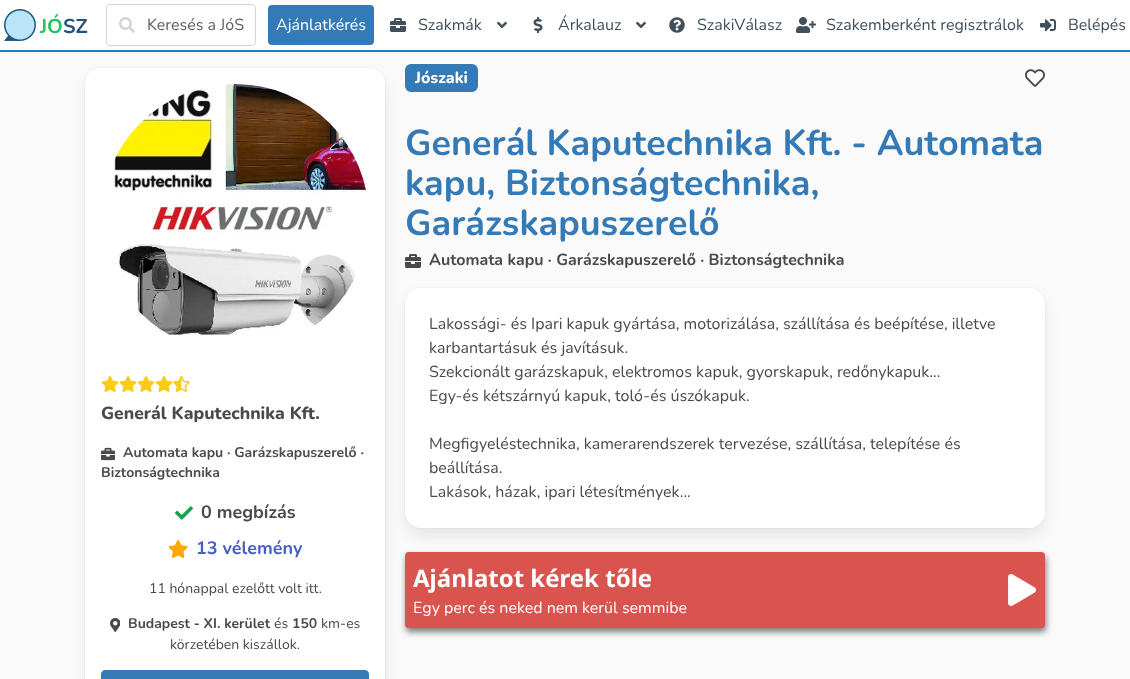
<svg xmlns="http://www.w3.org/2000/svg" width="1130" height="679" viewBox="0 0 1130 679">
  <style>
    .t1 { font: bold 20px Nunito; fill: #22c55e; }
    .t2 { font: bold 20px Nunito; fill: #23527c; }
    .t3 { font: 16px Nunito; fill: #606060; }
    .t4 { font: 16px Nunito; fill: #fff; }
    .t5 { font: 16px Nunito; fill: #404f5b; }
    .t6 { font: 800 17.6px Nunito; fill: #4a4a4a; }
    .t7 { font: bold 14px Nunito; fill: #4a4a4a; }
    .t8 { font: bold 18px Nunito; fill: #4a4a4a; }
    .t9 { font: bold 18px Nunito; fill: #485fc7; }
    .t10 { font: 14px Nunito; fill: #4a4a4a; }
    .t11 { font: 800 16px Nunito; fill: #fff; }
    .t12 { font: bold 36px Nunito; fill: #337ab7; }
    .t13 { font: bold 16px Nunito; fill: #4a4a4a; }
    .t14 { font: 16px Nunito; fill: #4a4a4a; }
    .t15 { font: bold 24px Noto Sans; fill: #fff; }
  </style>
  <rect width="100%" height="100%" fill="#fafafa"/>
  <rect x="0" y="0" width="1130" height="50" fill="#fff"/>
  <rect x="0" y="50" width="1130" height="2" fill="#1d80bf"/>
  <image x="4" y="9" width="32" height="32" href="images/1.png"/>
  <text x="40" y="33" class="t1">JÓ</text>
  <text x="63" y="33" class="t2">SZ</text>
  <rect x="106.5" y="4.5" width="149" height="41" rx="3.5" fill="none" stroke="#d1d5db"/>
  <image x="119" y="17" width="16" height="16" href="images/2.png"/>
  <text x="147" y="30" class="t3">Keresés a JóS</text>
  <rect x="268" y="5" width="106" height="40" rx="4" fill="#337ab7"/>
  <text x="276" y="30" class="t4">Ajánlatkérés</text>
  <image x="390" y="18" width="16" height="14" href="images/3.png"/>
  <text x="418" y="30" class="t5">Szakmák</text>
  <image x="497" y="21" width="10" height="8" href="images/4.png"/>
  <image x="533" y="17" width="10" height="16" href="images/5.png"/>
  <text x="558" y="30" class="t5">Árkalauz</text>
  <image x="636" y="21" width="10" height="8" href="images/4.png"/>
  <image x="669" y="17" width="16" height="16" href="images/6.png"/>
  <text x="697" y="30" class="t5">SzakiVálasz</text>
  <image x="796" y="17" width="20" height="16" href="images/7.png"/>
  <text x="826" y="30" class="t5">Szakemberként regisztrálok</text>
  <image x="1040" y="19" width="16" height="13" href="images/8.png"/>
  <text x="1068" y="30" class="t5">Belépés</text>
  <rect x="84.5" y="67.5" width="301" height="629" rx="16.5" fill="none" stroke="#f5f5f5"/>
  <rect x="406" y="65" width="71" height="26" rx="5" fill="#337ab7" stroke="#337ab7" stroke-width="2"/>
  <image x="405" y="254" width="16" height="14" href="images/17.png"/>
  <rect x="87" y="78" width="296" height="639" rx="14" fill="#0a0a0a1a" filter="blur(8px)"/>
  <path d="M101 68H369C378 68 385 75 385 84V679H85V84C85 75 92 68 101 68Z" fill="#fff"/>
  <image x="114" y="84" width="252" height="252" href="images/9.png"/>
  <image x="101" y="376" width="18" height="16" href="images/10.png"/>
  <image x="119" y="376" width="18" height="16" href="images/10.png"/>
  <image x="137" y="376" width="18" height="16" href="images/10.png"/>
  <image x="155" y="376" width="18" height="16" href="images/10.png"/>
  <image x="173" y="376" width="17" height="16" href="images/11.png"/>
  <text x="101" y="419" class="t6">Generál Kaputechnika Kft.</text>
  <image x="101" y="447" width="14" height="14" href="images/12.png"/>
  <text x="123" y="457" class="t7">Automata kapu · Garázskapuszerelő ·</text>
  <text x="101" y="477" class="t7">Biztonságtechnika</text>
  <image x="175" y="506" width="18" height="14" href="images/13.png"/>
  <text x="201" y="518" class="t8">0 megbízás</text>
  <image x="168" y="540" width="20" height="18" href="images/14.png"/>
  <text x="196" y="554" class="t9">13 vélemény</text>
  <text x="149" y="593" class="t10">11 hónappal ezelőtt volt itt.</text>
  <image x="110" y="618" width="10" height="14" href="images/15.png"/>
  <text x="128" y="628" class="t7">Budapest - XI. kerület</text>
  <text x="274" y="628" class="t10">és</text>
  <text x="292" y="628" class="t7">150</text>
  <text x="321" y="628" class="t10">km-es</text>
  <text x="170" y="649" class="t10">körzetében kiszállok.</text>
  <path d="M105 670H365C367 670 369 672 369 674V679H101V674C101 672 103 670 105 670Z" fill="#337ab7"/>
  <text x="415" y="83" class="t11">Jószaki</text>
  <image x="1025" y="69" width="20" height="18" href="images/16.png"/>
  <text x="405" y="155" class="t12">Generál Kaputechnika Kft. - Automata</text>
  <text x="405" y="195" class="t12">kapu, Biztonságtechnika,</text>
  <text x="405" y="235" class="t12">Garázskapuszerelő</text>
  <text x="429" y="265" class="t13">Automata kapu · Garázskapuszerelő · Biztonságtechnika</text>
  <rect x="404.5" y="287.5" width="641" height="241" rx="16.5" fill="none" stroke="#f5f5f5"/>
  <rect x="407" y="298" width="636" height="236" rx="14" fill="#0a0a0a1a" filter="blur(8px)"/>
  <rect x="405" y="288" width="640" height="240" rx="16" fill="#fff"/>
  <text x="429" y="329" class="t14">Lakossági- és Ipari kapuk gyártása, motorizálása, szállítása és beépítése, illetve</text>
  <text x="429" y="353" class="t14">karbantartásuk és javításuk.</text>
  <text x="429" y="377" class="t14">Szekcionált garázskapuk, elektromos kapuk, gyorskapuk, redőnykapuk...</text>
  <text x="429" y="401" class="t14">Egy-és kétszárnyú kapuk, toló-és úszókapuk.</text>
  <text x="429" y="449" class="t14">Megfigyeléstechnika, kamerarendszerek tervezése, szállítása, telepítése és</text>
  <text x="429" y="473" class="t14">beállítása.</text>
  <text x="429" y="497" class="t14">Lakások, házak, ipari létesítmények...</text>
  <rect x="406" y="556" width="640" height="76" rx="4" fill="#00000080" filter="blur(3px)"/>
  <rect x="405" y="552" width="640" height="76" rx="4" fill="#d9534f"/>
  <text x="413" y="587" class="t15">Ajánlatot kérek tőle</text>
  <image x="1008" y="574" width="28" height="32" href="images/18.png"/>
  <text x="413" y="613" class="t4">Egy perc és neked nem kerül semmibe</text>
</svg>
